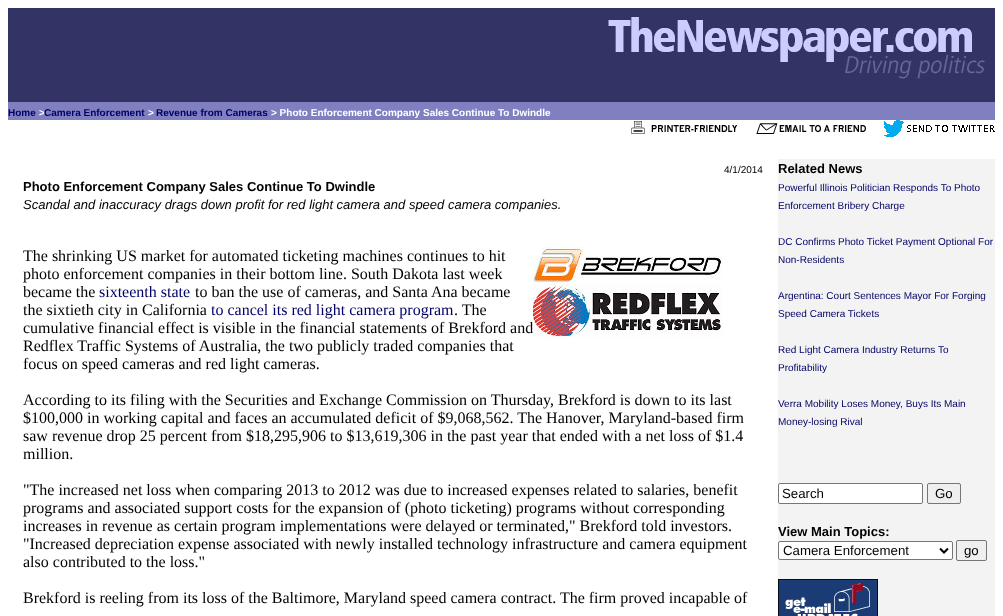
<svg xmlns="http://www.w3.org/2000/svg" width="1003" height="616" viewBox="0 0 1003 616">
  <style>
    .t1 { font: bold 10px Liberation Sans; fill: #006; }
    .t2 { font: bold 10px Liberation Sans; fill: #fff; }
    .t3 { font: 10px Liberation Sans; fill: #000; }
    .t4 { font: bold 13px Liberation Sans; fill: #000; }
    .t5 { font: italic 13px Liberation Sans; fill: #000; }
    .t6 { font: 16px Liberation Serif; fill: #000; }
    .t7 { font: 16px Liberation Serif; fill: #006; }
    .t8 { font: 10px Liberation Sans; fill: #006; }
    .t9 { font: 13.25px Liberation Sans; fill: #000; }
  </style>
  <rect width="100%" height="100%" fill="#fff"/>
  <rect x="8" y="8" width="987" height="94" fill="#336"/>
  <image x="608" y="17" width="377" height="62" href="images/1.png"/>
  <rect x="8" y="102" width="987" height="18" fill="#8080c0"/>
  <text x="8" y="116" class="t1">Home</text>
  <text x="39" y="116" class="t2">&gt;</text>
  <text x="44" y="116" class="t1">Camera Enforcement</text>
  <text x="148" y="116" class="t2">&gt;</text>
  <text x="156" y="116" class="t1">Revenue from Cameras</text>
  <text x="271" y="116" class="t2">&gt; Photo Enforcement Company Sales Continue To Dwindle</text>
  <image x="631" y="121" width="106" height="13" href="images/2.png"/>
  <image x="756" y="123" width="110" height="11" href="images/3.png"/>
  <image x="884" y="120" width="111" height="17" href="images/4.png"/>
  <text x="724" y="173" class="t3">4/1/2014</text>
  <text x="23" y="191" class="t4">Photo Enforcement Company Sales Continue To Dwindle</text>
  <text x="23" y="209" class="t5">Scandal and inaccuracy drags down profit for red light camera and speed camera companies.</text>
  <image x="533" y="247" width="190" height="92" href="images/5.png"/>
  <text x="23" y="261" class="t6">The shrinking US market for automated ticketing machines continues to hit</text>
  <text x="23" y="279" class="t6">photo enforcement companies in their bottom line. South Dakota last week</text>
  <text x="23" y="297" class="t6">became the</text>
  <text x="99" y="297" class="t7">sixteenth state</text>
  <text x="195" y="297" class="t6">to ban the use of cameras, and Santa Ana became</text>
  <text x="23" y="315" class="t6">the sixtieth city in California</text>
  <text x="211" y="315" class="t7">to cancel its red light camera program</text>
  <text x="454" y="315" class="t6">. The</text>
  <text x="23" y="333" class="t6">cumulative financial effect is visible in the financial statements of Brekford and</text>
  <text x="23" y="351" class="t6">Redflex Traffic Systems of Australia, the two publicly traded companies that</text>
  <text x="23" y="369" class="t6">focus on speed cameras and red light cameras.</text>
  <text x="23" y="405" class="t6">According to its filing with the Securities and Exchange Commission on Thursday, Brekford is down to its last</text>
  <text x="23" y="423" class="t6">$100,000 in working capital and faces an accumulated deficit of $9,068,562. The Hanover, Maryland-based firm</text>
  <text x="23" y="441" class="t6">saw revenue drop 25 percent from $18,295,906 to $13,619,306 in the past year that ended with a net loss of $1.4</text>
  <text x="23" y="459" class="t6">million.</text>
  <text x="23" y="495" class="t6">"The increased net loss when comparing 2013 to 2012 was due to increased expenses related to salaries, benefit</text>
  <text x="23" y="513" class="t6">programs and associated support costs for the expansion of (photo ticketing) programs without corresponding</text>
  <text x="23" y="531" class="t6">increases in revenue as certain program implementations were delayed or terminated," Brekford told investors.</text>
  <text x="23" y="549" class="t6">"Increased depreciation expense associated with newly installed technology infrastructure and camera equipment</text>
  <text x="23" y="567" class="t6">also contributed to the loss."</text>
  <text x="23" y="603" class="t6">Brekford is reeling from its loss of the Baltimore, Maryland speed camera contract. The firm proved incapable of</text>
  <rect x="778" y="159" width="217" height="457" fill="#f3f3f3"/>
  <text x="778" y="173" class="t4">Related News</text>
  <text x="778" y="191" class="t8">Powerful Illinois Politician Responds To Photo</text>
  <text x="778" y="209" class="t8">Enforcement Bribery Charge</text>
  <text x="778" y="245" class="t8">DC Confirms Photo Ticket Payment Optional For</text>
  <text x="778" y="263" class="t8">Non-Residents</text>
  <text x="778" y="299" class="t8">Argentina: Court Sentences Mayor For Forging</text>
  <text x="778" y="317" class="t8">Speed Camera Tickets</text>
  <text x="778" y="353" class="t8">Red Light Camera Industry Returns To</text>
  <text x="778" y="371" class="t8">Profitability</text>
  <text x="778" y="407" class="t8">Verra Mobility Loses Money, Buys Its Main</text>
  <text x="778" y="425" class="t8">Money-losing Rival</text>
  <rect x="778.5" y="483.5" width="144" height="20" rx="1.5" fill="#fff" stroke="#767676"/>
  <text x="782" y="498" class="t9">Search</text>
  <rect x="927.5" y="483.5" width="33" height="20" rx="1.5" fill="#efefef" stroke="#767676"/>
  <text x="935" y="498" class="t9">Go</text>
  <text x="778" y="536" class="t4">View Main Topics:</text>
  <rect x="778.5" y="541.5" width="174" height="18" rx="1.5" fill="#fff" stroke="#767676"/>
  <path d="M940 548.5L944 552.5L948 548.5" fill="none" stroke="#000" stroke-width="2"/>
  <text x="783" y="555" class="t9">Camera Enforcement</text>
  <rect x="956.5" y="540.5" width="30" height="20" rx="1.5" fill="#efefef" stroke="#767676"/>
  <text x="964" y="555" class="t9">go</text>
  <image x="778" y="579" width="100" height="37" href="images/6.png"/>
</svg>
